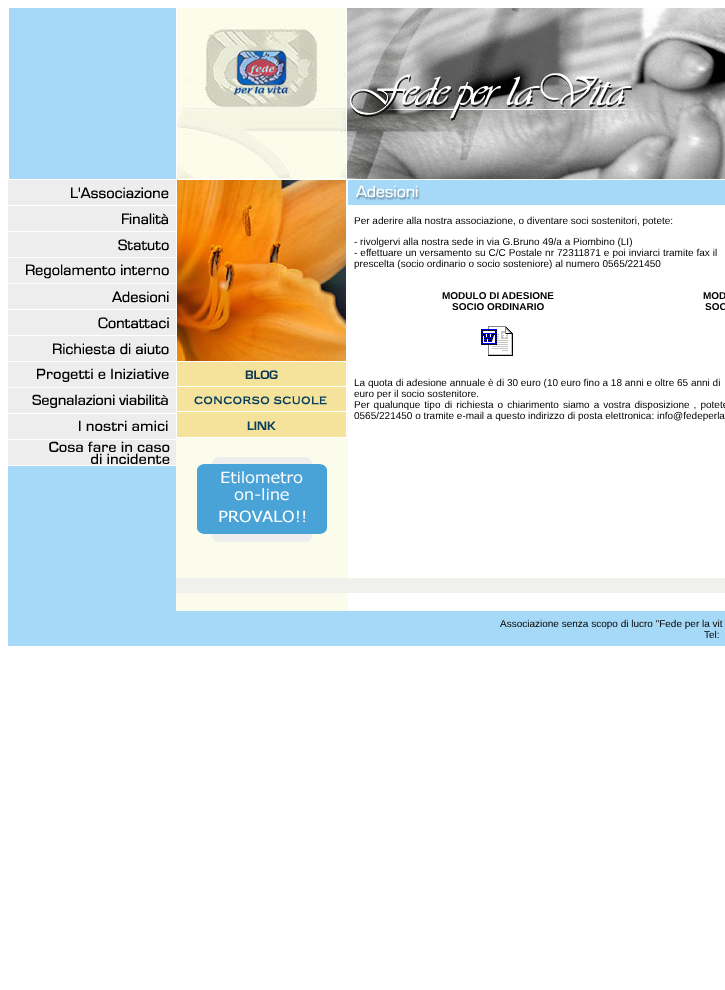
<svg xmlns="http://www.w3.org/2000/svg" width="725" height="990" viewBox="0 0 725 990">
  <style>
    .t1 { font: 10px Liberation Sans; fill: #000; }
    .t2 { font: bold 10px Liberation Sans; fill: #000; }
  </style>
  <rect width="100%" height="100%" fill="#fff"/>
  <rect x="8" y="8" width="717" height="638" fill="#a6d9f7"/>
  <rect x="176" y="8" width="1" height="172" fill="#fff"/>
  <rect x="8" y="179" width="169" height="1" fill="#fff"/>
  <rect x="8" y="8" width="1" height="172" fill="#fff"/>
  <image x="177" y="8" width="169" height="172" href="images/1.png"/>
  <rect x="346" y="179" width="379" height="1" fill="#fff"/>
  <rect x="176" y="180" width="172" height="398" fill="#fbfceb"/>
  <rect x="346" y="8" width="1" height="354" fill="#fff"/>
  <image x="347" y="8" width="378" height="171" href="images/2.png"/>
  <rect x="8" y="180" width="168" height="285" fill="#ededed"/>
  <rect x="8" y="205" width="168" height="1" fill="#fff"/>
  <image x="71" y="187" width="98" height="12" href="images/3.png"/>
  <rect x="8" y="231" width="168" height="1" fill="#fff"/>
  <image x="122" y="213" width="46" height="12" href="images/4.png"/>
  <rect x="8" y="257" width="168" height="1" fill="#fff"/>
  <image x="118" y="239" width="51" height="12" href="images/5.png"/>
  <rect x="8" y="283" width="168" height="1" fill="#fff"/>
  <image x="26" y="264" width="143" height="15" href="images/6.png"/>
  <rect x="8" y="309" width="168" height="1" fill="#fff"/>
  <image x="112" y="291" width="57" height="12" href="images/7.png"/>
  <rect x="8" y="335" width="168" height="1" fill="#fff"/>
  <image x="98" y="317" width="71" height="12" href="images/8.png"/>
  <rect x="8" y="361" width="168" height="1" fill="#fff"/>
  <image x="53" y="343" width="116" height="12" href="images/9.png"/>
  <rect x="8" y="387" width="168" height="1" fill="#fff"/>
  <image x="37" y="368" width="132" height="14" href="images/10.png"/>
  <rect x="8" y="413" width="168" height="1" fill="#fff"/>
  <image x="32" y="394" width="136" height="14" href="images/11.png"/>
  <rect x="8" y="439" width="168" height="1" fill="#fff"/>
  <image x="79" y="420" width="89" height="11" href="images/12.png"/>
  <rect x="8" y="465" width="168" height="1" fill="#fff"/>
  <image x="49" y="441" width="121" height="23" href="images/13.png"/>
  <rect x="176" y="361" width="171" height="1" fill="#fff"/>
  <rect x="176" y="180" width="1" height="182" fill="#fff"/>
  <image x="177" y="180" width="169" height="181" href="images/14.png"/>
  <rect x="177" y="362" width="169" height="75" fill="#f5e39b"/>
  <rect x="346" y="362" width="1" height="76" fill="#fff"/>
  <rect x="176" y="437" width="171" height="1" fill="#fff"/>
  <rect x="176" y="362" width="1" height="76" fill="#fff"/>
  <rect x="177" y="386" width="169" height="1" fill="#fff"/>
  <image x="245" y="370" width="33" height="9" href="images/15.png"/>
  <rect x="177" y="411" width="169" height="1" fill="#fff"/>
  <image x="194" y="396" width="133" height="9" href="images/16.png"/>
  <image x="247" y="421" width="29" height="9" href="images/17.png"/>
  <image x="197" y="457" width="130" height="85" href="images/18.png"/>
  <image x="356" y="185" width="64" height="16" href="images/19.png"/>
  <rect x="348" y="205" width="377" height="373" fill="#fff"/>
  <text x="354" y="224" class="t1">Per aderire alla nostra associazione, o diventare soci sostenitori, potete:</text>
  <text x="354" y="245" class="t1">- rivolgervi alla nostra sede in via G.Bruno 49/a a Piombino (LI)</text>
  <text x="354" y="256" word-spacing="0.25" class="t1">- effettuare un versamento su C/C Postale nr 72311871 e poi inviarci tramite fax il</text>
  <text x="354" y="267" class="t1">prescelta (socio ordinario o socio sosteniore) al numero 0565/221450</text>
  <text x="442" y="299" class="t2">MODULO DI ADESIONE</text>
  <text x="452" y="310" class="t2">SOCIO ORDINARIO</text>
  <text x="703" y="299" class="t2">MOD</text>
  <text x="705" y="310" class="t2">SOC</text>
  <image x="481" y="326" width="32" height="30" href="images/20.png"/>
  <text x="354" y="386" class="t1">La quota di adesione annuale è di 30 euro (10 euro fino a 18 anni e oltre 65 anni di</text>
  <text x="354" y="397" class="t1">euro per il socio sostenitore.</text>
  <text x="354" y="408" word-spacing="1.25" class="t1">Per qualunque tipo di richiesta o chiarimento</text>
  <text x="563" y="408" word-spacing="1.25" class="t1">siamo a vostra disposizione , potete</text>
  <text x="354" y="419" class="t1">0565/221450 o tramite e-mail a questo indirizzo di posta elettronica: info@fedeperla</text>
  <rect x="176" y="578" width="549" height="15" fill="#f0f0ed"/>
  <rect x="176" y="593" width="172" height="18" fill="#fbfceb"/>
  <rect x="348" y="593" width="377" height="18" fill="#fff"/>
  <text x="500" y="627" class="t1">Associazione senza scopo di lucro "Fede per la vit</text>
  <text x="704" y="638" class="t1">Tel:</text>
</svg>
